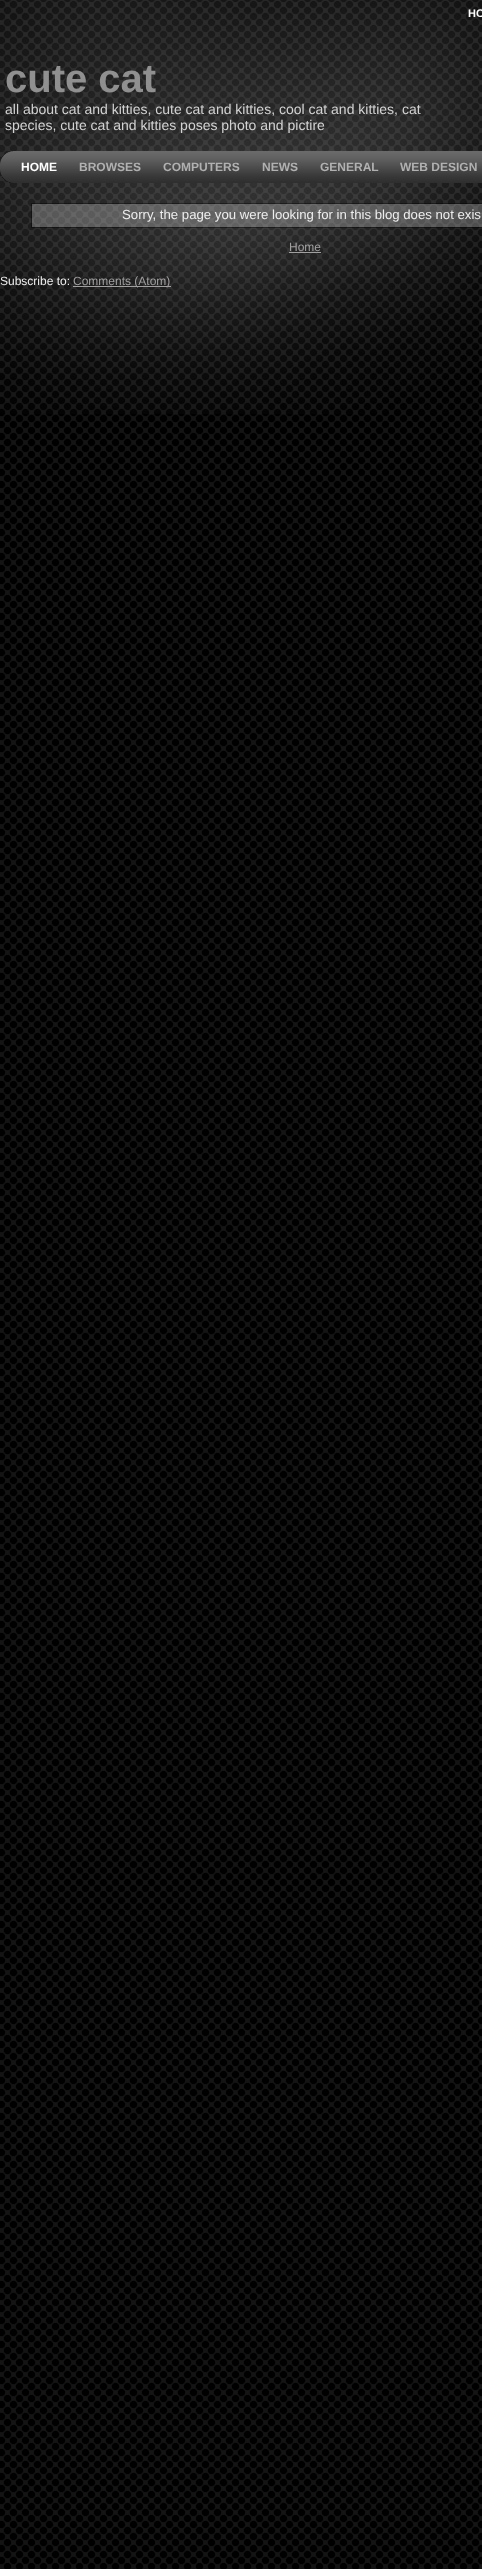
<svg xmlns="http://www.w3.org/2000/svg" width="482" height="2569" viewBox="0 0 482 2569">
  <style>
    .t1 { font: bold 11px Liberation Sans; fill: #fff; }
    .t2 { font: bold 40px Liberation Sans; fill: #909090; }
    .t3 { font: 14px Liberation Sans; fill: #d4d3d3; }
    .t4 { font: bold 12px Liberation Sans; fill: #fff; }
    .t5 { font: bold 12px Liberation Sans; fill: #b1b1b1; }
    .t6 { font: 13.2px Liberation Sans; fill: #eee; }
    .t7 { font: 12px Liberation Sans; fill: #a29f9f; }
    .t8 { font: 12px Liberation Sans; fill: #eee; }
  </style>
  <rect width="100%" height="100%" fill="#fff"/>
  <image x="0" y="0" width="482" height="2569" href="images/1.png"/>
  <image x="0" y="0" width="482" height="414" href="images/2.png"/>
  <text x="468" y="17" class="t1">HO</text>
  <text x="5" y="92" class="t2">cute cat</text>
  <text x="5" y="114" class="t3">all about cat and kitties, cute cat and kitties, cool cat and kitties, cat</text>
  <text x="5" y="130" class="t3">species, cute cat and kitties poses photo and pictire</text>
  <image x="0" y="151" width="482" height="32" href="images/3.png"/>
  <text x="21" y="171" class="t4">HOME</text>
  <text x="79" y="171" class="t5">BROWSES</text>
  <text x="163" y="171" class="t5">COMPUTERS</text>
  <text x="262" y="171" class="t5">NEWS</text>
  <text x="320" y="171" class="t5">GENERAL</text>
  <text x="400" y="171" class="t5">WEB DESIGN</text>
  <rect x="31.5" y="203.5" width="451" height="24" fill="none" stroke="#00000066"/>
  <rect x="32" y="204" width="450" height="23" fill="#cccccc52"/>
  <text x="122" y="219" class="t6">Sorry, the page you were looking for in this blog does not exis</text>
  <text x="289" y="251" class="t7">Home</text>
  <rect x="289" y="252" width="32" height="1" fill="#a29f9f"/>
  <text x="0" y="285" class="t8">Subscribe to:</text>
  <rect x="73" y="286" width="98" height="1" fill="#a29f9f"/>
  <text x="73" y="285" class="t7">Comments (Atom)</text>
</svg>
